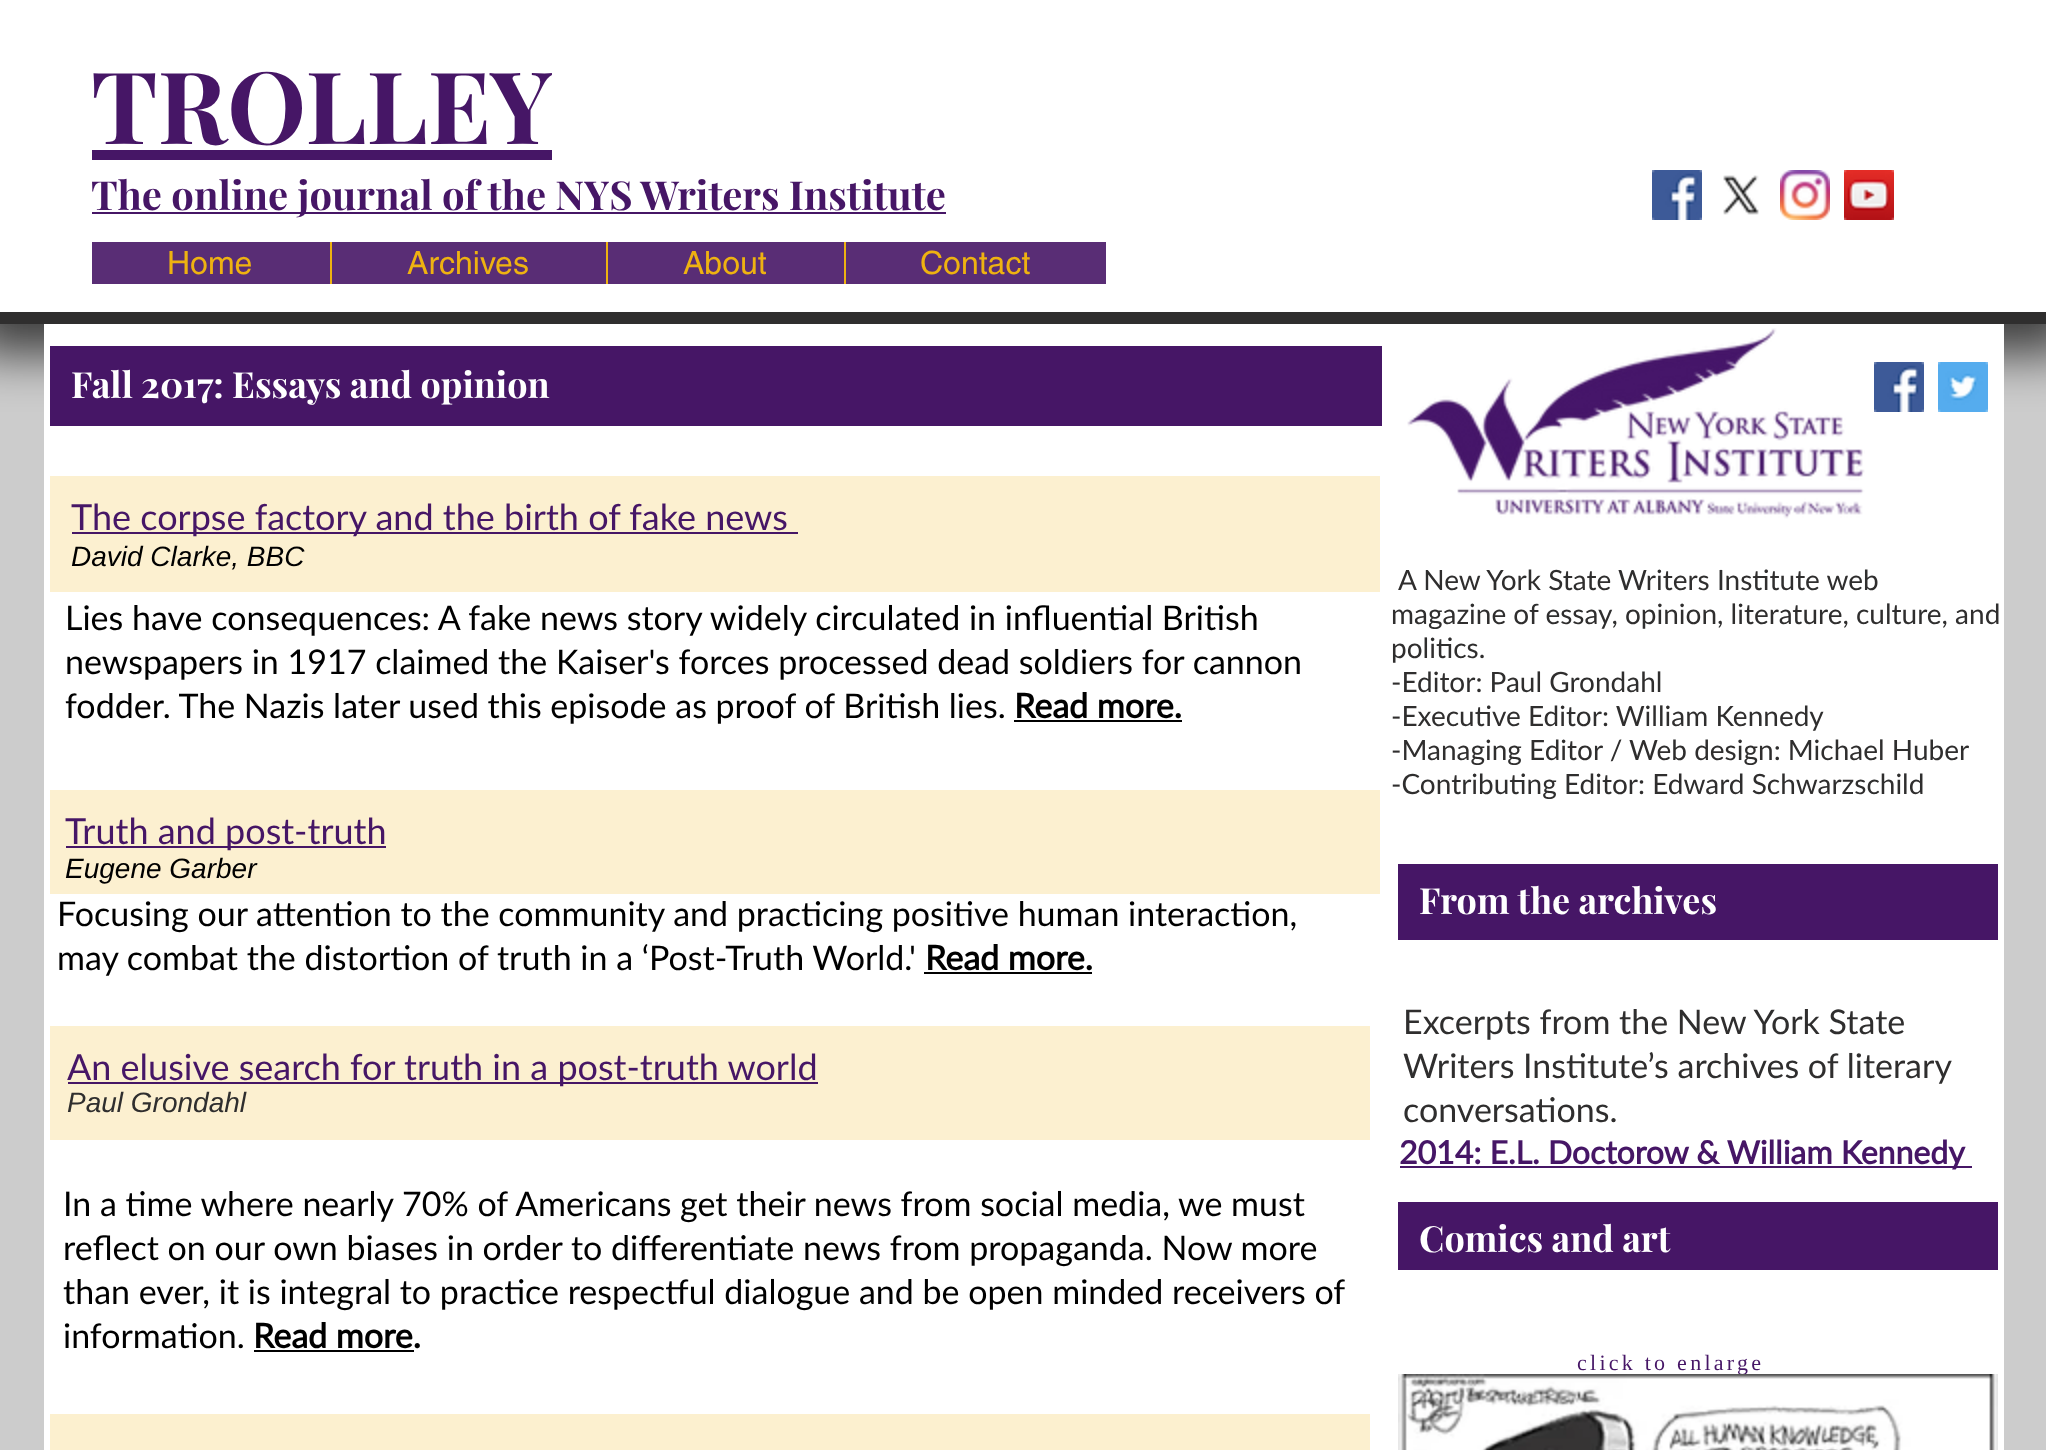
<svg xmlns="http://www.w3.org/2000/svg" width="2046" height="1450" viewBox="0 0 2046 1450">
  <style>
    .t1 { font: bold 100px Playfair Display; fill: #461666; }
    .t2 { font: bold 40px Playfair Display; fill: #461666; }
    .t3 { font: 32px helvetica; fill: #eeb211; }
    .t4 { font: bold 36px Playfair Display; fill: #fff; }
    .t5 { font: 36px Lato; fill: #461666; }
    .t6 { font: italic 28px Liberation Sans; fill: #000; }
    .t7 { font: 34px Lato; fill: #000; }
    .t8 { font: bold 34px Lato; fill: #000; }
    .t9 { font: 28px Lato; fill: #2f2e2e; }
    .t10 { font: italic 28px Liberation Sans; fill: #2f2e2e; }
    .t11 { font: 34px Lato; fill: #2f2e2e; }
    .t12 { font: bold 32px Lato; fill: #461666; }
    .t13 { font: bold 36px 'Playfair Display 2'; fill: #fff; }
    .t14 { font: 22px Liberation Serif; letter-spacing: 3.25px; fill: #461666; }
  </style>
  <rect width="100%" height="100%" fill="#ccc"/>
  <rect x="-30" y="-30" width="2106" height="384" fill="#000000b3" filter="blur(25px)"/>
  <rect x="0" y="312" width="2046" height="12" fill="#2f2e2e"/>
  <rect x="0" y="0" width="2046" height="312" fill="#fff"/>
  <text x="91" y="144" class="t1">TROLLEY</text>
  <rect x="92" y="150" width="460" height="10" fill="#461666"/>
  <rect x="92" y="212" width="854" height="2" fill="#461666"/>
  <text x="91" y="210" class="t2">The online journal of the NYS Writers Institute</text>
  <image x="1652" y="170" width="50" height="50" href="images/1.png"/>
  <image x="1723" y="175" width="36" height="40" href="images/2.png"/>
  <image x="1780" y="170" width="50" height="50" href="images/3.png"/>
  <image x="1844" y="170" width="50" height="50" href="images/4.png"/>
  <rect x="92" y="242" width="1014" height="42" fill="#592d75"/>
  <text x="167" y="274" class="t3">Home</text>
  <rect x="330" y="242" width="2" height="42" fill="#eeb211"/>
  <text x="407" y="274" class="t3">Archives</text>
  <rect x="606" y="242" width="2" height="42" fill="#eeb211"/>
  <text x="683" y="274" class="t3">About</text>
  <rect x="844" y="242" width="2" height="42" fill="#eeb211"/>
  <text x="920" y="274" class="t3">Contact</text>
  <rect x="44" y="324" width="1960" height="1126" fill="#fff"/>
  <rect x="50" y="346" width="1332" height="80" fill="#461666"/>
  <text x="71" y="398" class="t4">Fall 2017: Essays and opinion</text>
  <image x="1407" y="328" width="458" height="191" href="images/5.png"/>
  <image x="1874" y="362" width="50" height="50" href="images/1.png"/>
  <image x="1938" y="362" width="50" height="50" href="images/6.png"/>
  <rect x="50" y="476" width="1330" height="116" fill="#fcf0d0"/>
  <rect x="72" y="532" width="726" height="2" fill="#461666"/>
  <text x="71" y="530" class="t5">The corpse factory and the birth of fake news</text>
  <text x="71" y="566" class="t6">David Clarke, BBC</text>
  <text x="65" y="630" class="t7">Lies have consequences: A fake news story widely circulated in influential British</text>
  <text x="65" y="674" class="t7">newspapers in 1917 claimed the Kaiser's forces processed dead soldiers for cannon</text>
  <text x="65" y="718" class="t7">fodder. The Nazis later used this episode as proof of British lies.</text>
  <text x="1014" y="718" class="t8">Read more.</text>
  <rect x="1014" y="720" width="168" height="2" fill="#000"/>
  <text x="1398" y="590" class="t9">A New York State Writers Institute web</text>
  <text x="1391" y="624" class="t9">magazine of essay, opinion, literature, culture, and</text>
  <text x="1391" y="658" class="t9">politics.</text>
  <text x="1391" y="692" class="t9">-Editor: Paul Grondahl</text>
  <text x="1391" y="726" class="t9">-Executive Editor: William Kennedy</text>
  <text x="1391" y="760" class="t9">-Managing Editor / Web design: Michael Huber</text>
  <text x="1391" y="794" class="t9">-Contributing Editor: Edward Schwarzschild</text>
  <rect x="50" y="790" width="1330" height="104" fill="#fcf0d0"/>
  <rect x="66" y="846" width="320" height="2" fill="#461666"/>
  <text x="65" y="844" class="t5">Truth and post-truth</text>
  <text x="65" y="878" class="t6">Eugene Garber</text>
  <text x="57" y="926" class="t7">Focusing our attention to the community and practicing positive human interaction,</text>
  <text x="57" y="970" class="t7">may combat the distortion of truth in a ‘Post-Truth World.'</text>
  <text x="925" y="970" class="t8">Read more.</text>
  <rect x="924" y="972" width="168" height="2" fill="#000"/>
  <rect x="1398" y="864" width="600" height="76" fill="#461666"/>
  <text x="1419" y="914" class="t4">From the archives</text>
  <rect x="50" y="1026" width="1320" height="114" fill="#fcf0d0"/>
  <rect x="68" y="1082" width="750" height="2" fill="#461666"/>
  <text x="67" y="1080" class="t5">An elusive search for truth in a post-truth world</text>
  <text x="67" y="1112" class="t10">Paul Grondahl</text>
  <text x="1403" y="1034" class="t11">Excerpts from the New York State</text>
  <text x="1403" y="1078" class="t11">Writers Institute’s archives of literary</text>
  <text x="1403" y="1122" class="t11">conversations.</text>
  <rect x="1400" y="1166" width="572" height="2" fill="#461666"/>
  <text x="1399" y="1164" class="t12">2014: E.L. Doctorow &amp; William Kennedy</text>
  <text x="63" y="1216" class="t7">In a time where nearly 70% of Americans get their news from social media, we must</text>
  <text x="63" y="1260" class="t7">reflect on our own biases in order to differentiate news from propaganda. Now more</text>
  <text x="63" y="1304" class="t7">than ever, it is integral to practice respectful dialogue and be open minded receivers of</text>
  <text x="63" y="1348" class="t7">information.</text>
  <text x="253" y="1348" class="t8">Read more.</text>
  <rect x="254" y="1350" width="160" height="2" fill="#000"/>
  <rect x="1398" y="1202" width="600" height="68" fill="#461666"/>
  <text x="1419" y="1252" class="t13">Comics and art</text>
  <text x="1577" y="1370" class="t14">click to enlarge</text>
  <rect x="50" y="1414" width="1320" height="36" fill="#fcf0cf"/>
  <image x="1398" y="1374" width="600" height="76" href="images/7.png"/>
</svg>
